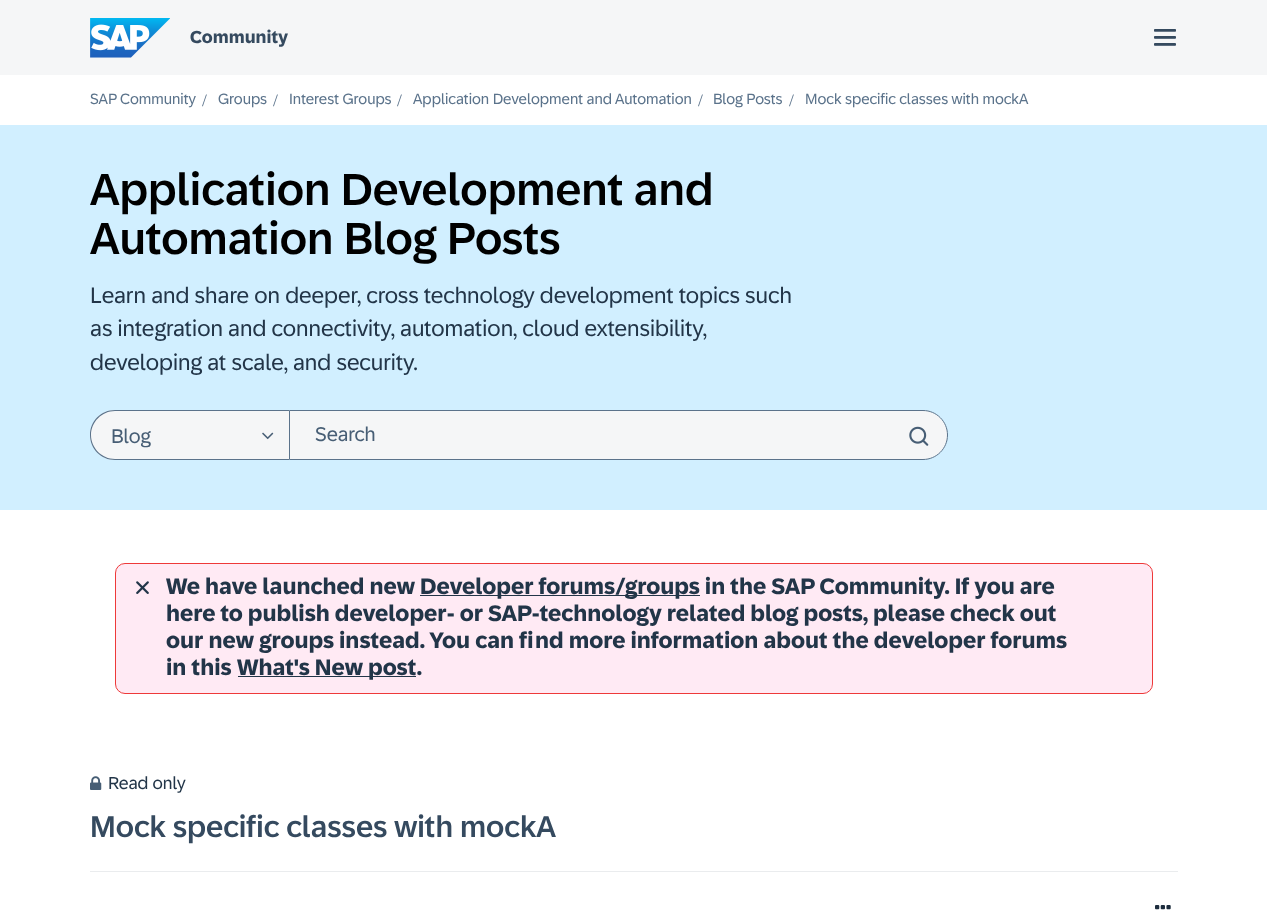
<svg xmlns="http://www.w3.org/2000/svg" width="1267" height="910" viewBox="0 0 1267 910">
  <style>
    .t1 { font: bold 17.5px '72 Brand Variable'; fill: #354a5f; }
    .t2 { font: 15px '72 Brand Variable'; fill: #5b738b; }
    .t3 { font: 17.5px Liberation Serif; fill: #5b738b; }
    .t4 { font: 500 45px '72 Brand Variable'; fill: #000; }
    .t5 { font: 22.5px '72 Brand Variable'; fill: #223548; }
    .t6 { font: 20px '72 Brand Variable'; fill: #475e75; }
    .t7 { font: bold 22.5px '72 Brand Variable'; fill: #223548; }
    .t8 { font: 17.5px '72 Brand Variable'; fill: #223548; }
    .t9 { font: 500 30px '72 Brand Variable'; fill: #354a5f; }
  </style>
  <rect width="100%" height="100%" fill="#fff"/>
  <rect x="0" y="0" width="1267" height="75" fill="#f5f6f7"/>
  <image x="90" y="18" width="80" height="40" href="images/1.png"/>
  <text x="190" y="43" class="t1">Community</text>
  <image x="1154" y="29" width="22" height="17" href="images/2.png"/>
  <text x="90" y="104" class="t2">SAP Community</text>
  <text x="202" y="106" class="t3">/</text>
  <text x="218" y="104" class="t2">Groups</text>
  <text x="273" y="106" class="t3">/</text>
  <text x="289" y="104" class="t2">Interest Groups</text>
  <text x="397" y="106" class="t3">/</text>
  <text x="413" y="104" class="t2">Application Development and Automation</text>
  <text x="698" y="106" class="t3">/</text>
  <text x="713" y="104" class="t2">Blog Posts</text>
  <text x="789" y="106" class="t3">/</text>
  <text x="805" y="104" class="t2">Mock specific classes with mockA</text>
  <rect x="0" y="125" width="1267" height="385" fill="#d1efff"/>
  <text x="90" y="205" class="t4">Application Development and</text>
  <text x="90" y="254" class="t4">Automation Blog Posts</text>
  <text x="90" y="303" class="t5">Learn and share on deeper, cross technology development topics such</text>
  <text x="90" y="336" class="t5">as integration and connectivity, automation, cloud extensibility,</text>
  <text x="90" y="370" class="t5">developing at scale, and security.</text>
  <path d="M115 410H289V460H115C101 460 90 449 90 435C90 421 101 410 115 410Z" fill="#f5f6f7"/>
  <path d="M115 410H289V460H115C101 460 90 449 90 435C90 421 101 410 115 410ZM115 411H289V459H115C102 459 91 448 91 435C91 422 102 411 115 411Z" fill="#5b738b" fill-rule="evenodd"/>
  <text x="111" y="443" class="t6">Blog</text>
  <image x="262" y="432" width="12" height="8" href="images/3.png"/>
  <path d="M289.5 410.5H923C936.5 410.5 947.5 421.5 947.5 435C947.5 448.5 936.5 459.5 923 459.5H289.5Z" fill="#f5f6f7" stroke="#5b738b"/>
  <text x="315" y="441" class="t6">Search</text>
  <image x="909" y="426" width="20" height="20" href="images/4.png"/>
  <rect x="115.5" y="563.5" width="1037" height="130" rx="9.5" fill="#ffeaf4" stroke="#ee3939"/>
  <image x="136" y="581" width="13" height="13" href="images/5.png"/>
  <text x="166" y="594" class="t7">We have launched new</text>
  <rect x="420" y="595" width="280" height="1" fill="#223548"/>
  <text x="420" y="594" class="t7">Developer forums/groups in the SAP Community. If you are</text>
  <text x="166" y="621" class="t7">here to publish developer- or SAP-technology related blog posts, please check out</text>
  <text x="166" y="648" class="t7">our new groups instead. You can find more information about the developer forums</text>
  <text x="166" y="675" class="t7">in this</text>
  <rect x="238" y="676" width="178" height="1" fill="#223548"/>
  <text x="237" y="675" class="t7">What's New post.</text>
  <rect x="90" y="871" width="1088" height="1" fill="#eaecee"/>
  <image x="90" y="776" width="12" height="14" href="images/6.png"/>
  <text x="108" y="789" class="t8">Read only</text>
  <text x="90" y="837" class="t9">Mock specific classes with mockA</text>
  <image x="1155" y="905" width="16" height="5" href="images/7.png"/>
</svg>
